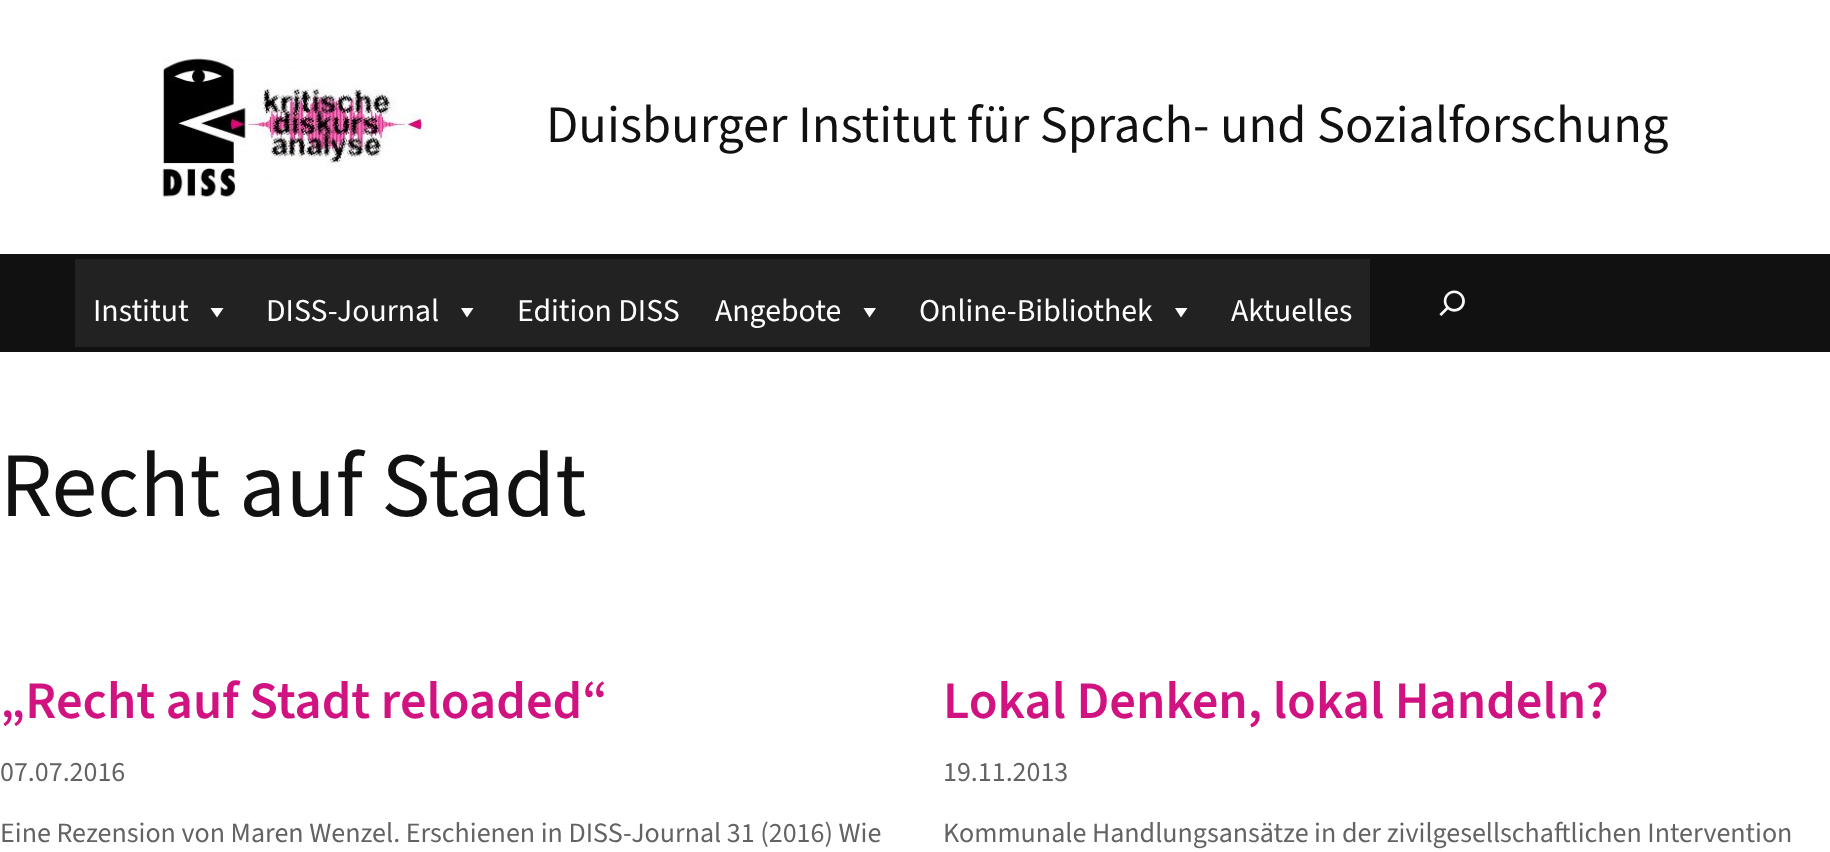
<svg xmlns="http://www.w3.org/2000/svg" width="1830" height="852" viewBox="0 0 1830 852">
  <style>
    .t1 { font: 52.6px 'Source Sans 3'; fill: #111; }
    .t2 { font: 31.75px 'Source Sans 3'; fill: #fff; }
    .t3 { font: 92.25px 'Source Sans 3'; fill: #111; }
    .t4 { font: 600 52.6px 'Source Sans 3'; fill: #d01381; }
    .t5 { font: 28px 'Source Sans 3'; fill: #636363; }
  </style>
  <rect width="100%" height="100%" fill="#fff"/>
  <image x="162" y="58" width="266" height="141" href="images/1.png"/>
  <text x="546" y="142" class="t1">Duisburger Institut für Sprach- und Sozialforschung</text>
  <rect x="0" y="254" width="1830" height="98" fill="#111"/>
  <rect x="75" y="259" width="1295" height="88" fill="#222"/>
  <text x="93" y="321" class="t2">Institut</text>
  <path d="M223.5 308L217 317.5L210.5 308Z" fill="#fff"/>
  <text x="266" y="321" class="t2">DISS-Journal</text>
  <path d="M473.5 308L467 317.5L461 308Z" fill="#fff"/>
  <text x="517" y="321" class="t2">Edition DISS</text>
  <text x="715" y="321" class="t2">Angebote</text>
  <path d="M876 308L869.5 317.5L863.5 308Z" fill="#fff"/>
  <text x="919" y="321" class="t2">Online-Bibliothek</text>
  <path d="M1187.5 308L1181 317.5L1175 308Z" fill="#fff"/>
  <text x="1231" y="321" class="t2">Aktuelles</text>
  <image x="1439" y="290" width="26" height="26" href="images/2.png"/>
  <text x="0" y="516" class="t3">Recht auf Stadt</text>
  <text x="0" y="718" class="t4">„Recht auf Stadt reloaded“</text>
  <text x="0" y="781" class="t5">07.07.2016</text>
  <text x="0" y="842" class="t5">Eine Rezension von Maren Wenzel. Erschienen in DISS-Journal 31 (2016) Wie</text>
  <text x="943" y="718" class="t4">Lokal Denken, lokal Handeln?</text>
  <text x="943" y="781" class="t5">19.11.2013</text>
  <text x="943" y="842" class="t5">Kommunale Handlungsansätze in der zivilgesellschaftlichen Intervention</text>
</svg>
